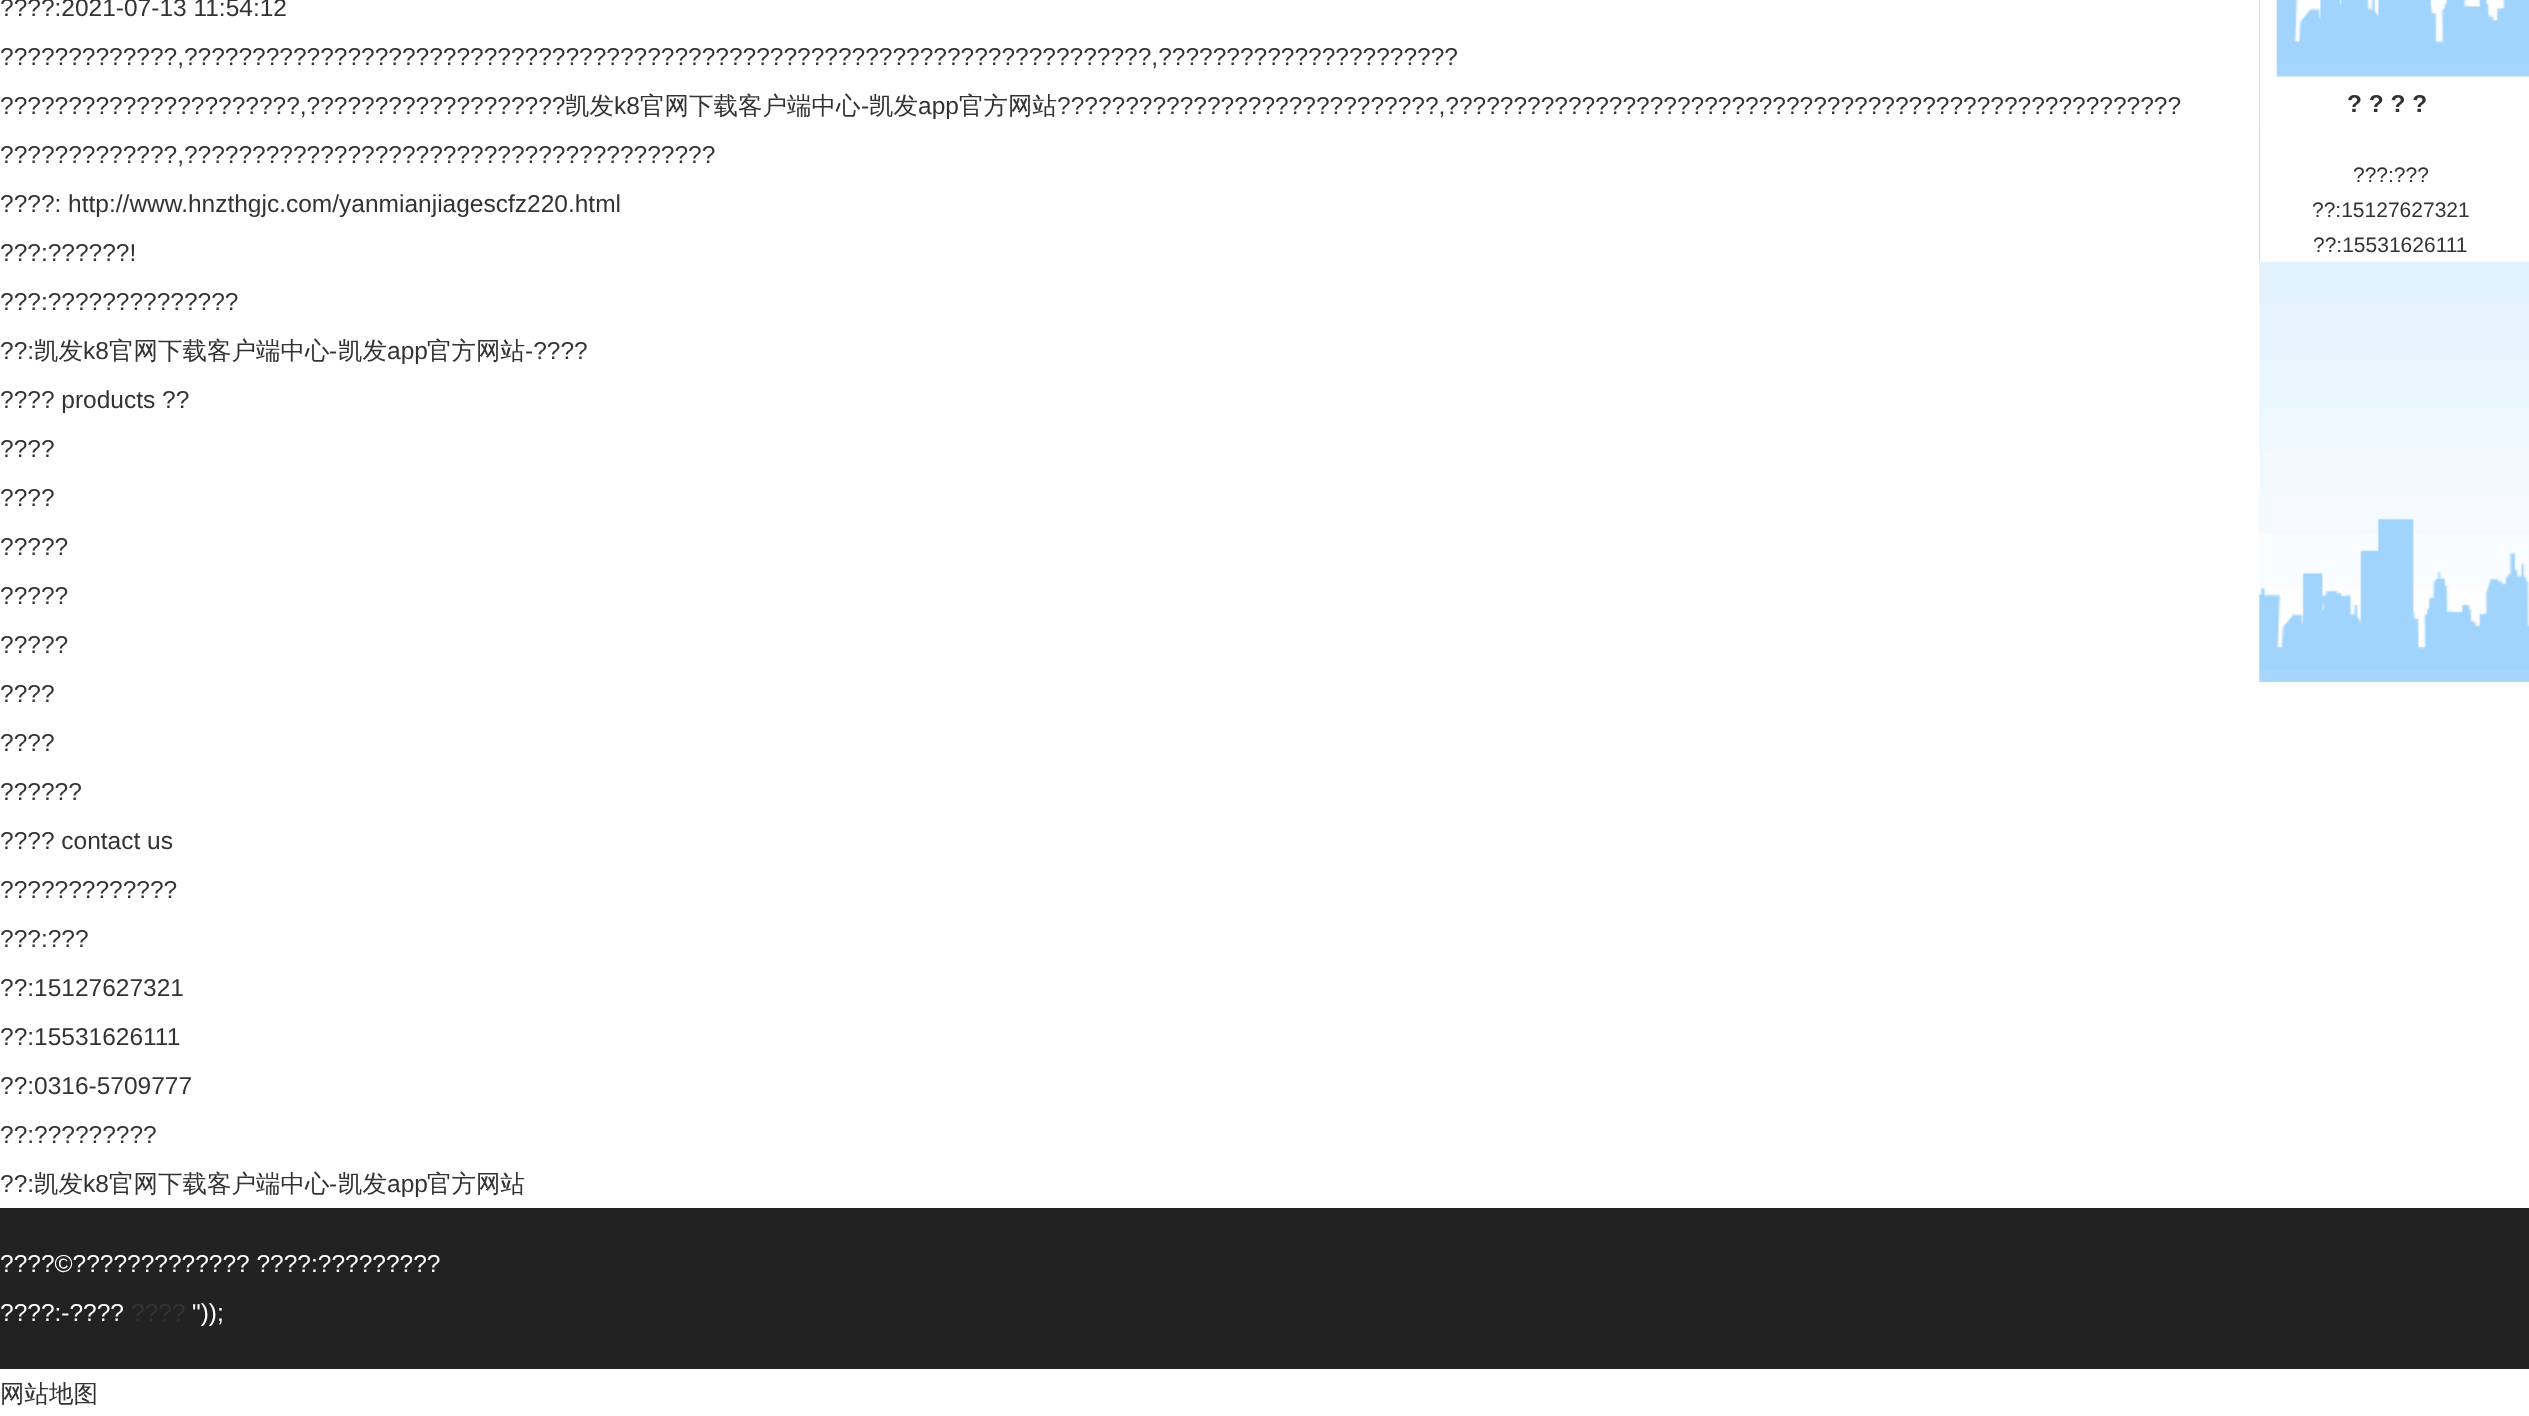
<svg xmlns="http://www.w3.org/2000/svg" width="2529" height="1416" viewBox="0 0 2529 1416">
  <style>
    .t1 { font: 24.5px Liberation Sans; fill: #333; }
    .t2 { font: 500 24.5px WenQuanYi Zen Hei; fill: #333; }
    .t3 { font: bold 24.5px Liberation Sans; fill: #333; }
    .t4 { font: 21px Liberation Sans; fill: #333; }
    .t5 { font: 24.5px Liberation Sans; fill: #fff; }
  </style>
  <rect width="100%" height="100%" fill="#fff"/>
  <text x="0" y="16" class="t1">????:2021-07-13 11:54:12</text>
  <text x="0" y="65" class="t1">?????????????,???????????????????????????????????????????????????????????????????????,??????????????????????</text>
  <text x="0" y="114" class="t1">??????????????????????,???????????????????</text>
  <text x="565" y="114" class="t2">凯发</text>
  <text x="614" y="114" class="t1">k8</text>
  <text x="640" y="114" class="t2">官网下载客户端中心</text>
  <text x="861" y="114" class="t1">-</text>
  <text x="869" y="114" class="t2">凯发</text>
  <text x="918" y="114" class="t1">app</text>
  <text x="959" y="114" class="t2">官方网站</text>
  <text x="1057" y="114" class="t1">????????????????????????????,??????????????????????????????????????????????????????</text>
  <text x="0" y="163" class="t1">?????????????,???????????????????????????????????????</text>
  <text x="0" y="212" class="t1">????: http://www.hnzthgjc.com/yanmianjiagescfz220.html</text>
  <text x="0" y="261" class="t1">???:??????!</text>
  <text x="0" y="310" class="t1">???:??????????????</text>
  <text x="0" y="359" class="t1">??:</text>
  <text x="34" y="359" class="t2">凯发</text>
  <text x="83" y="359" class="t1">k8</text>
  <text x="109" y="359" class="t2">官网下载客户端中心</text>
  <text x="329" y="359" class="t1">-</text>
  <text x="338" y="359" class="t2">凯发</text>
  <text x="387" y="359" class="t1">app</text>
  <text x="427" y="359" class="t2">官方网站</text>
  <text x="525" y="359" class="t1">-????</text>
  <text x="0" y="408" class="t1">???? products ??</text>
  <text x="0" y="457" class="t1">????</text>
  <text x="0" y="506" class="t1">????</text>
  <text x="0" y="555" class="t1">?????</text>
  <text x="0" y="604" class="t1">?????</text>
  <text x="0" y="653" class="t1">?????</text>
  <text x="0" y="702" class="t1">????</text>
  <text x="0" y="751" class="t1">????</text>
  <text x="0" y="800" class="t1">??????</text>
  <text x="0" y="849" class="t1">???? contact us</text>
  <text x="0" y="898" class="t1">?????????????</text>
  <text x="0" y="947" class="t1">???:???</text>
  <text x="0" y="996" class="t1">??:15127627321</text>
  <text x="0" y="1045" class="t1">??:15531626111</text>
  <text x="0" y="1094" class="t1">??:0316-5709777</text>
  <text x="0" y="1143" class="t1">??:?????????</text>
  <text x="0" y="1192" class="t1">??:</text>
  <text x="34" y="1192" class="t2">凯发</text>
  <text x="83" y="1192" class="t1">k8</text>
  <text x="109" y="1192" class="t2">官网下载客户端中心</text>
  <text x="329" y="1192" class="t1">-</text>
  <text x="338" y="1192" class="t2">凯发</text>
  <text x="387" y="1192" class="t1">app</text>
  <text x="427" y="1192" class="t2">官方网站</text>
  <image x="2259" y="0" width="1" height="262" href="images/2.png"/>
  <image x="2259" y="0" width="270" height="262" href="images/1.png"/>
  <image x="2276" y="0" width="253" height="77" href="images/3.png"/>
  <text x="2347" y="112" class="t3">? ? ? ?</text>
  <text x="2353" y="182" class="t4">???:???</text>
  <text x="2312" y="217" class="t4">??:15127627321</text>
  <text x="2313" y="252" class="t4">??:15531626111</text>
  <image x="2259" y="262" width="270" height="420" href="images/4.png"/>
  <rect x="0" y="1208" width="2529" height="161" fill="#222"/>
  <text x="0" y="1272" class="t5">????©????????????? ????:?????????</text>
  <text x="0" y="1321" class="t5">????:-????</text>
  <text x="131" y="1321" class="t1">????</text>
  <text x="192" y="1321" class="t5">"));</text>
  <text x="0" y="1402" class="t2">网站地图</text>
</svg>
